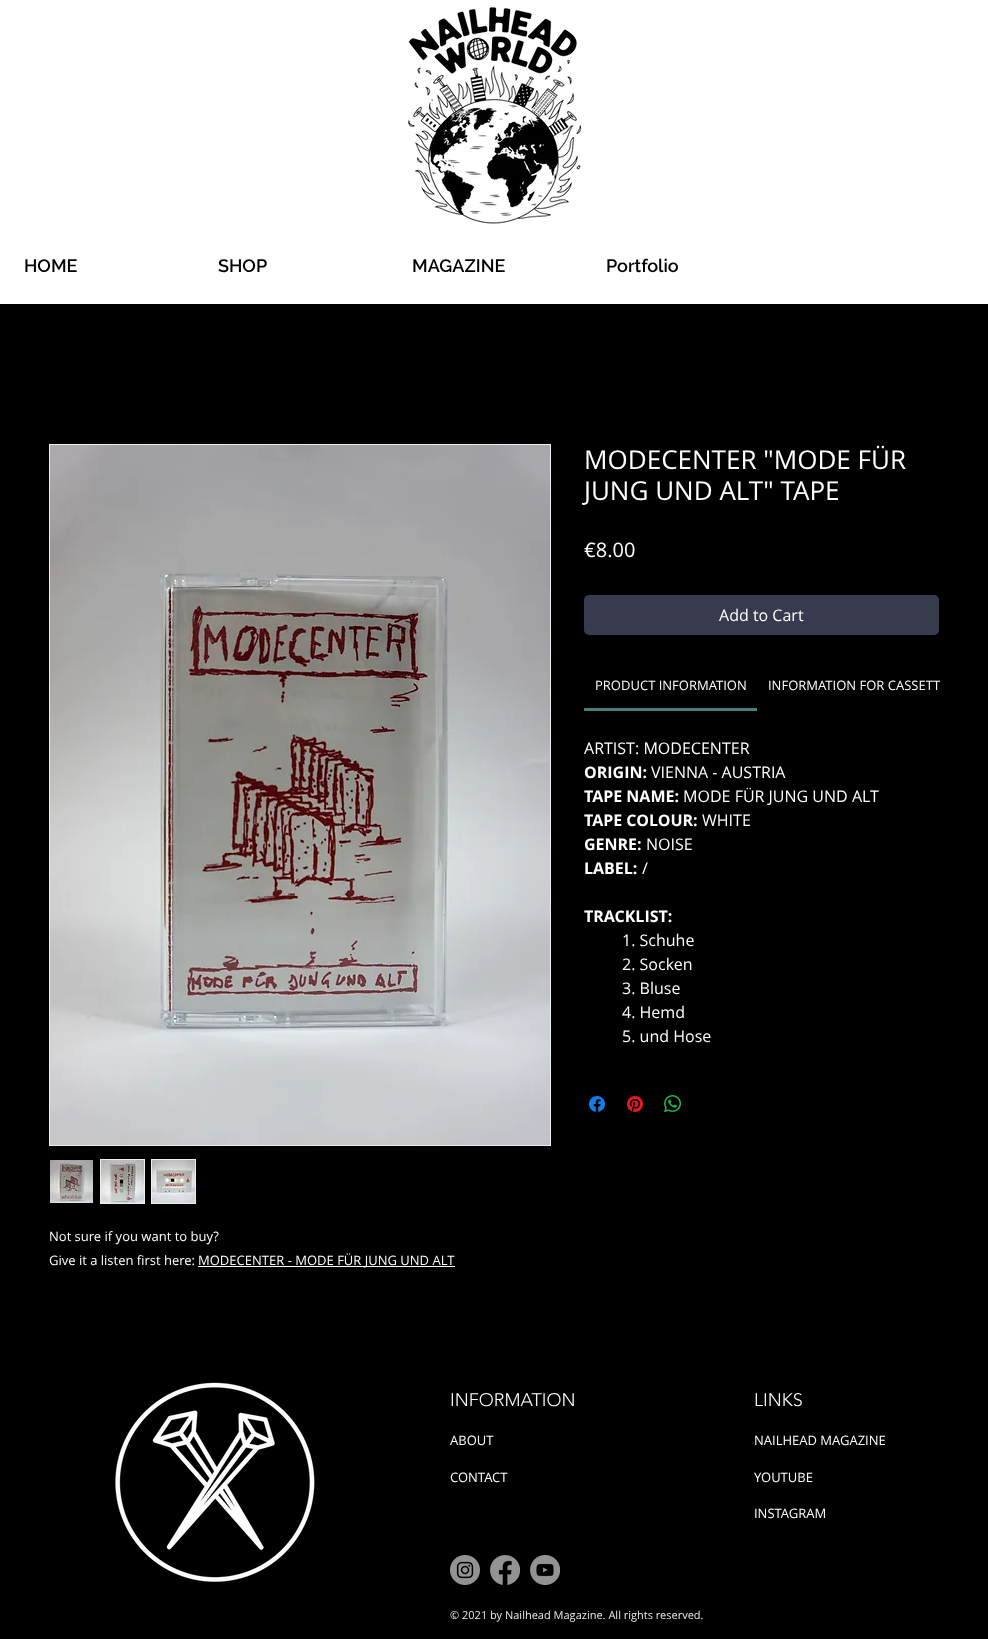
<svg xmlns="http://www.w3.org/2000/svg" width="988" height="1639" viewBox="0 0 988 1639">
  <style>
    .t1 { font: 600 18px Raleway; fill: #000; }
    .t2 { font: 26px Open Sans; fill: #fff; }
    .t3 { font: 20px Open Sans; fill: #fff; }
    .t4 { font: 16px Open Sans; fill: #fff; }
    .t5 { font: 13px Open Sans; fill: #fff; }
    .t6 { font: bold 16px Open Sans; fill: #fff; }
    .t7 { font: 300 18px 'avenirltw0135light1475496'; fill: #fff; }
    .t8 { font: 11px Open Sans; fill: #ededec; }
  </style>
  <rect width="100%" height="100%" fill="#000"/>
  <rect x="0" y="0" width="988" height="304" fill="#fff"/>
  <image x="408" y="7" width="174" height="217" href="images/1.png"/>
  <text x="24" y="272" class="t1">HOME</text>
  <text x="218" y="272" class="t1">SHOP</text>
  <text x="412" y="272" class="t1">MAGAZINE</text>
  <text x="606" y="272" class="t1">Portfolio</text>
  <text x="584" y="469" class="t2">MODECENTER "MODE FÜR</text>
  <text x="584" y="500" class="t2">JUNG UND ALT" TAPE</text>
  <text x="584" y="557" class="t3">€8.00</text>
  <rect x="584" y="595" width="355" height="40" rx="5" fill="#373b4d"/>
  <text x="719" y="621" class="t4">Add to Cart</text>
  <rect x="584" y="708" width="173" height="3" fill="#4a7d7c"/>
  <text x="595" y="690" class="t5">PRODUCT INFORMATION</text>
  <text x="768" y="690" class="t5">INFORMATION FOR CASSETT</text>
  <text x="584" y="754" class="t4">ARTIST: MODECENTER</text>
  <text x="584" y="778" class="t6">ORIGIN:</text>
  <text x="651" y="778" class="t4">VIENNA - AUSTRIA</text>
  <text x="584" y="802" class="t6">TAPE NAME:</text>
  <text x="683" y="802" class="t4">MODE FÜR JUNG UND ALT</text>
  <text x="584" y="826" class="t6">TAPE COLOUR:</text>
  <text x="702" y="826" class="t4">WHITE</text>
  <text x="584" y="850" class="t6">GENRE:</text>
  <text x="646" y="850" class="t4">NOISE</text>
  <text x="584" y="874" class="t6">LABEL:</text>
  <text x="642" y="874" class="t4">/</text>
  <text x="584" y="922" class="t6">TRACKLIST:</text>
  <text x="622" y="946" class="t4">1. Schuhe</text>
  <text x="622" y="970" class="t4">2. Socken</text>
  <text x="622" y="994" class="t4">3. Bluse</text>
  <text x="622" y="1018" class="t4">4. Hemd</text>
  <text x="622" y="1042" class="t4">5. und Hose</text>
  <image x="589" y="1096" width="16" height="16" href="images/2.png"/>
  <image x="627" y="1096" width="16" height="16" href="images/3.png"/>
  <image x="664" y="1095" width="17" height="17" href="images/4.png"/>
  <rect x="49.5" y="444.5" width="501" height="701" fill="none" stroke="#ededec"/>
  <image x="50" y="445" width="500" height="700" href="images/5.png"/>
  <image x="50" y="1160" width="43" height="43" href="images/6.png"/>
  <rect x="100.5" y="1159.5" width="44" height="44" fill="none" stroke="#ededec"/>
  <image x="101" y="1160" width="43" height="43" href="images/7.png"/>
  <rect x="151.5" y="1159.5" width="44" height="44" fill="none" stroke="#ededec"/>
  <image x="152" y="1160" width="43" height="43" href="images/8.png"/>
  <text x="49" y="1241" class="t5">Not sure if you want to buy?</text>
  <text x="49" y="1265" class="t5">Give it a listen first here:</text>
  <rect x="198" y="1266" width="257" height="1" fill="#fff"/>
  <text x="198" y="1265" class="t5">MODECENTER - MODE FÜR JUNG UND ALT</text>
  <image x="115" y="1382" width="200" height="200" href="images/9.png"/>
  <text x="450" y="1406" class="t7">INFORMATION</text>
  <text x="450" y="1445" class="t5">ABOUT</text>
  <text x="450" y="1482" class="t5">CONTACT</text>
  <text x="754" y="1406" class="t7">LINKS</text>
  <text x="754" y="1445" class="t5">NAILHEAD MAGAZINE</text>
  <text x="754" y="1482" class="t5">YOUTUBE</text>
  <text x="754" y="1518" class="t5">INSTAGRAM</text>
  <image x="450" y="1555" width="30" height="30" href="images/10.png"/>
  <image x="490" y="1555" width="30" height="30" href="images/11.png"/>
  <image x="530" y="1555" width="30" height="30" href="images/12.png"/>
  <text x="450" y="1619" class="t8">© 2021 by Nailhead Magazine. All rights reserved.</text>
</svg>
